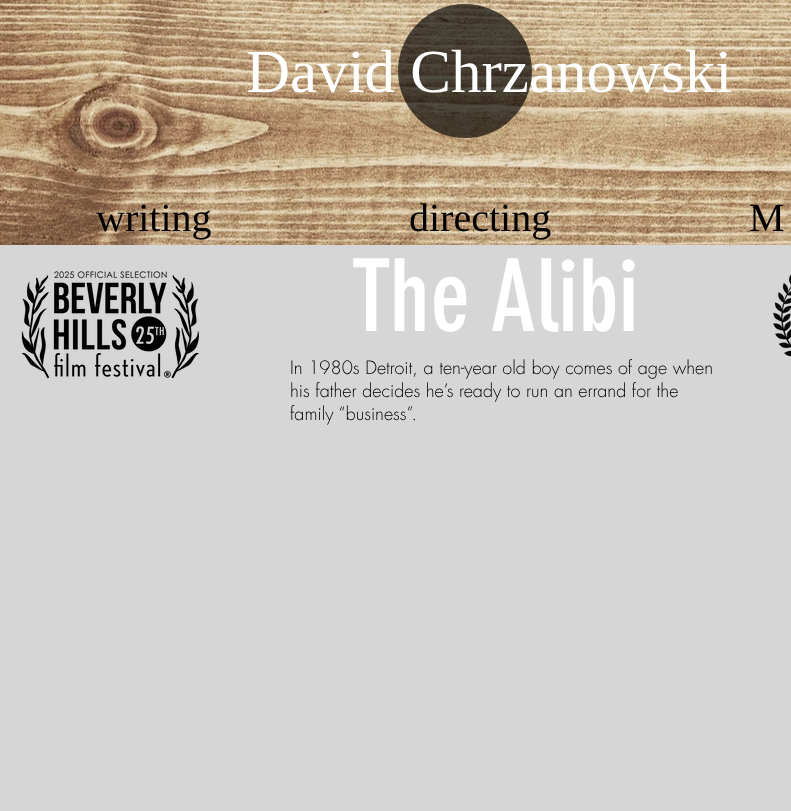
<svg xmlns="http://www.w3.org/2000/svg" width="791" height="811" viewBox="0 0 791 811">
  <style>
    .t1 { font: 61px Liberation Serif; fill: #fff; }
    .t2 { font: 40px Liberation Serif; fill: #000; }
    .t3 { font: 99px 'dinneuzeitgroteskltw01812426'; fill: #fff; }
    .t4 { font: 300 18px futura; fill: #000; }
  </style>
  <rect width="100%" height="100%" fill="#fff"/>
  <image x="0" y="0" width="791" height="245" href="images/1.png"/>
  <path d="M532 71C532 108 502 138 465 138C428 138 398 108 398 71C398 34 428 4 465 4C502 4 532 34 532 71Z" fill="#000000a8"/>
  <text x="246" y="92" class="t1">David Chrzanowski</text>
  <text x="96" y="231" class="t2">writing</text>
  <text x="409" y="231" class="t2">directing</text>
  <text x="749" y="231" class="t2">M</text>
  <rect x="0" y="245" width="791" height="566" fill="#d6d6d6"/>
  <image x="21" y="271" width="178" height="108" href="images/2.png"/>
  <text x="351" y="331" class="t3">The Alibi</text>
  <image x="773" y="274" width="18" height="83" href="images/3.png"/>
  <text x="290" y="374" class="t4">In 1980s Detroit, a ten-year old boy comes of age when</text>
  <text x="290" y="397" class="t4">his father decides he’s ready to run an errand for the</text>
  <text x="290" y="420" class="t4">family “business”.</text>
</svg>
